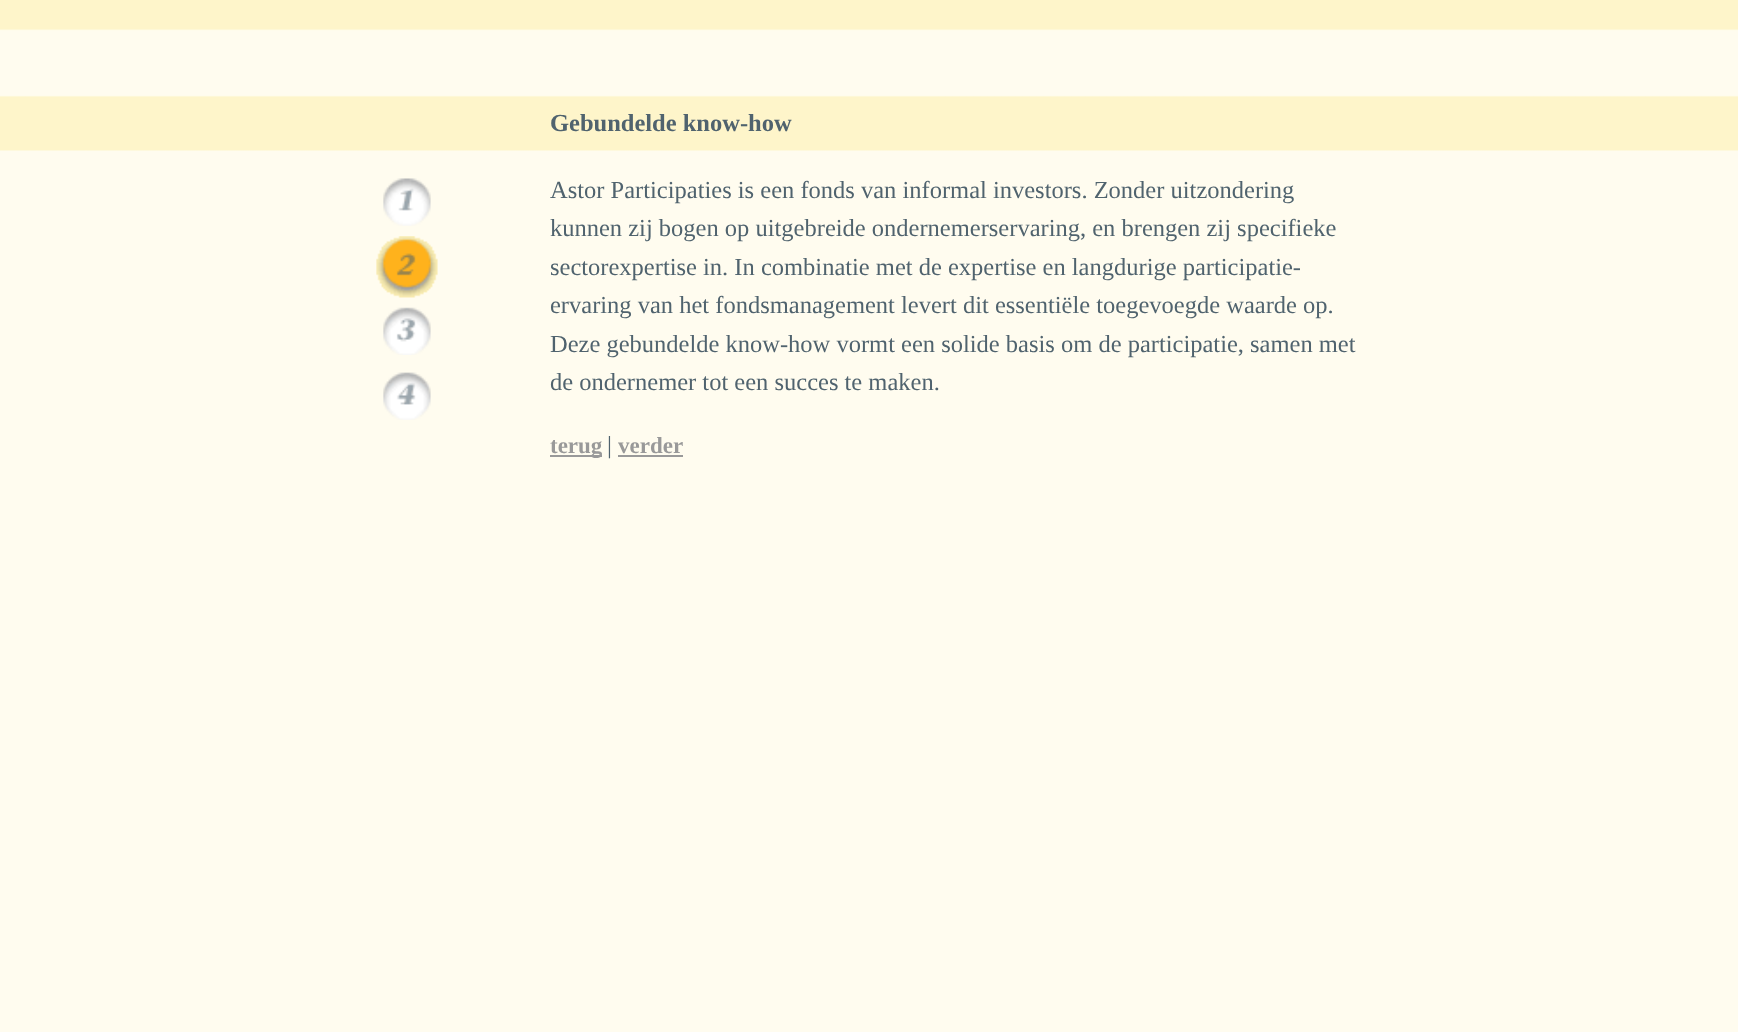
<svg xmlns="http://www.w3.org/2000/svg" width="1738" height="1032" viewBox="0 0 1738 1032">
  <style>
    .t1 { font: bold 24.5px Liberation Serif; fill: #50636e; }
    .t2 { font: 24.5px Liberation Serif; fill: #50636e; }
    .t3 { font: bold 23px Liberation Serif; fill: #999; }
  </style>
  <rect width="100%" height="100%" fill="#fff"/>
  <image x="0" y="0" width="1738" height="1032" href="images/1.png"/>
  <text x="550" y="131" class="t1">Gebundelde know-how</text>
  <image x="383" y="178" width="48" height="48" href="images/2.png"/>
  <image x="376" y="236" width="62" height="62" href="images/3.png"/>
  <image x="383" y="307" width="48" height="48" href="images/4.png"/>
  <image x="383" y="372" width="48" height="48" href="images/5.png"/>
  <text x="550" y="198" class="t2">Astor Participaties is een fonds van informal investors. Zonder uitzondering</text>
  <text x="550" y="236" class="t2">kunnen zij bogen op uitgebreide ondernemerservaring, en brengen zij specifieke</text>
  <text x="550" y="275" class="t2">sectorexpertise in. In combinatie met de expertise en langdurige participatie-</text>
  <text x="550" y="313" class="t2">ervaring van het fondsmanagement levert dit essentiële toegevoegde waarde op.</text>
  <text x="550" y="352" class="t2">Deze gebundelde know-how vormt een solide basis om de participatie, samen met</text>
  <text x="550" y="390" class="t2">de ondernemer tot een succes te maken.</text>
  <rect x="550" y="455" width="52" height="2" fill="#999"/>
  <text x="550" y="453" class="t3">terug</text>
  <text x="607" y="453" class="t2">|</text>
  <text x="618" y="453" class="t3">verder</text>
  <rect x="618" y="455" width="65" height="2" fill="#999"/>
</svg>
